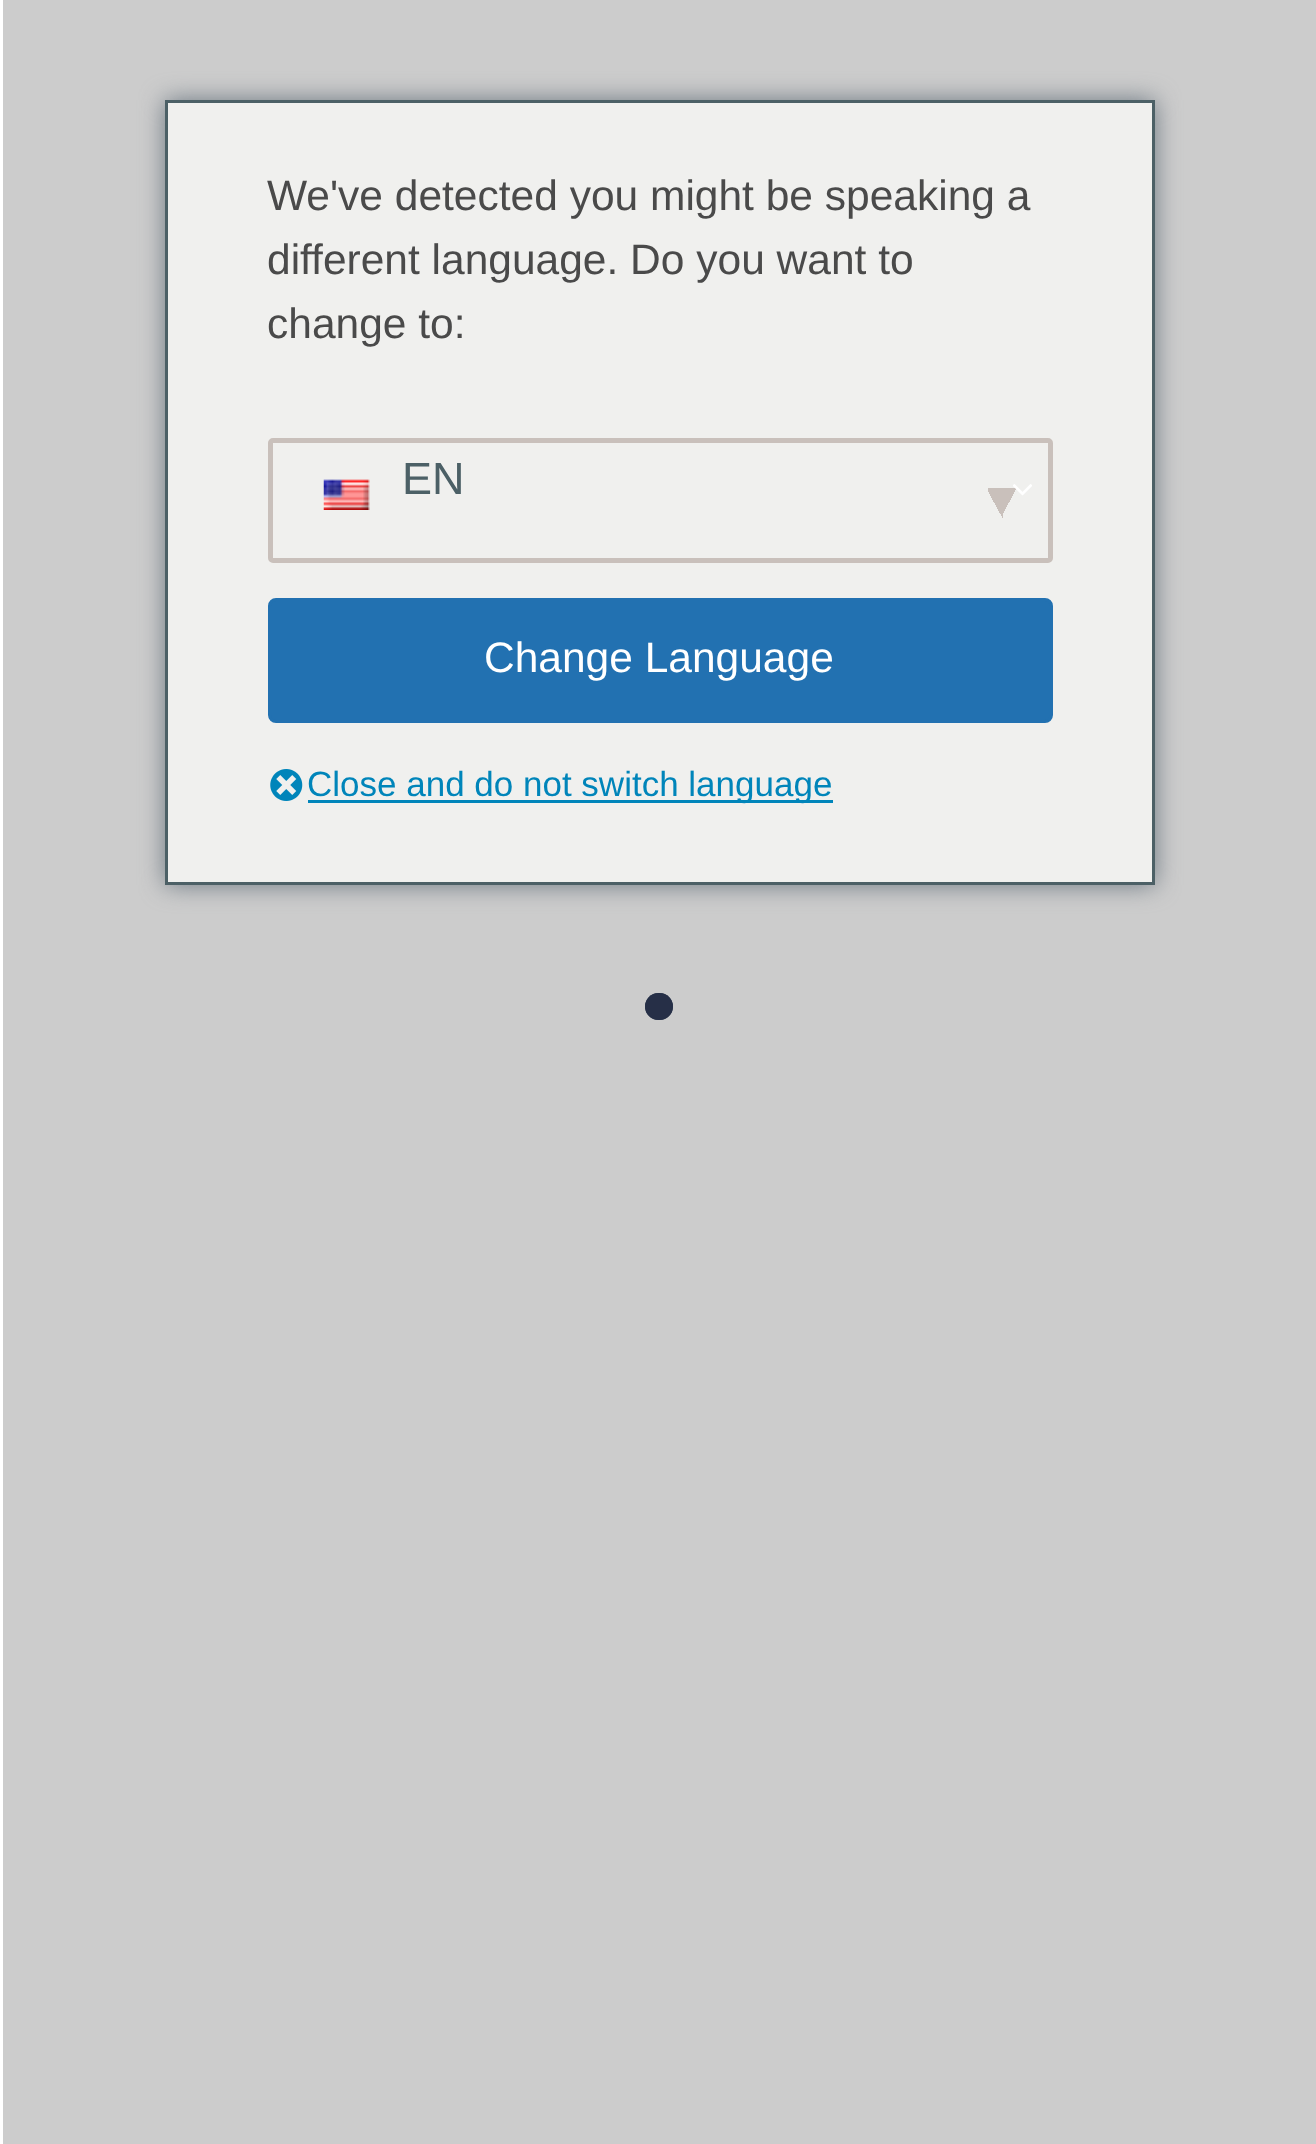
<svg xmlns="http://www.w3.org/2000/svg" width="1316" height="2144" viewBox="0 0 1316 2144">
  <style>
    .t1 { font: 42.5px Liberation Sans; fill: #4a4a4a; }
    .t2 { font: 45px Liberation Sans; fill: #4c6066; }
    .t3 { font: 42.5px Liberation Sans; fill: #fff; }
    .t4 { font: 35px Liberation Sans; fill: #0085ba; }
  </style>
  <defs>
    <linearGradient id="g1" gradientUnits="userSpaceOnUse" x1="997" y1="496" x2="1021" y2="509"><stop offset="0.5" stop-color="#c9c0bb"/><stop offset="0.5" stop-color="#f0f0ee"/></linearGradient>
    <linearGradient id="g2" gradientUnits="userSpaceOnUse" x1="982" y1="509" x2="1006" y2="496"><stop offset="0.5" stop-color="#f0f0ee"/><stop offset="0.5" stop-color="#c9c0bb"/></linearGradient>
  </defs>
  <rect width="100%" height="100%" fill="#fff"/>
  <rect x="3" y="0" width="1313" height="2144" fill="#ccc"/>
  <rect x="645" y="993" width="28" height="27" rx="13.5" fill="#263048"/>
  <rect x="645" y="993" width="28" height="27" rx="13.5" fill="#263048b3"/>
  <rect x="645" y="993" width="28" height="27" rx="13.5" fill="#2630486b"/>
  <rect x="165" y="100" width="990" height="785" fill="#6c7781" filter="blur(12.5px)"/>
  <rect x="166.5" y="101.5" width="987" height="782" fill="#f0f0ee" stroke="#4c6066" stroke-width="3"/>
  <text x="267" y="210" class="t1">We've detected you might be speaking a</text>
  <text x="267" y="274" class="t1">different language. Do you want to</text>
  <text x="267" y="338" class="t1">change to:</text>
  <rect x="1003" y="488" width="14" height="25" fill="url(#g1)"/>
  <rect x="988" y="488" width="15" height="30" fill="url(#g2)"/>
  <rect x="270.5" y="440.5" width="780" height="120" rx="2.5" fill="none" stroke="#c9c0bb" stroke-width="5"/>
  <image x="323" y="479" width="47" height="31" href="images/1.png"/>
  <text x="402" y="494" class="t2">EN</text>
  <image x="1013" y="484" width="19" height="12" href="images/2.png"/>
  <rect x="269.5" y="599.5" width="782" height="122" rx="6.5" fill="#2271b1" stroke="#2271b1" stroke-width="3"/>
  <text x="484" y="672" class="t3">Change Language</text>
  <image x="270" y="769" width="33" height="32" href="images/3.png"/>
  <rect x="308" y="800" width="525" height="3" fill="#0085ba"/>
  <text x="307" y="796" class="t4">Close and do not switch language</text>
</svg>
